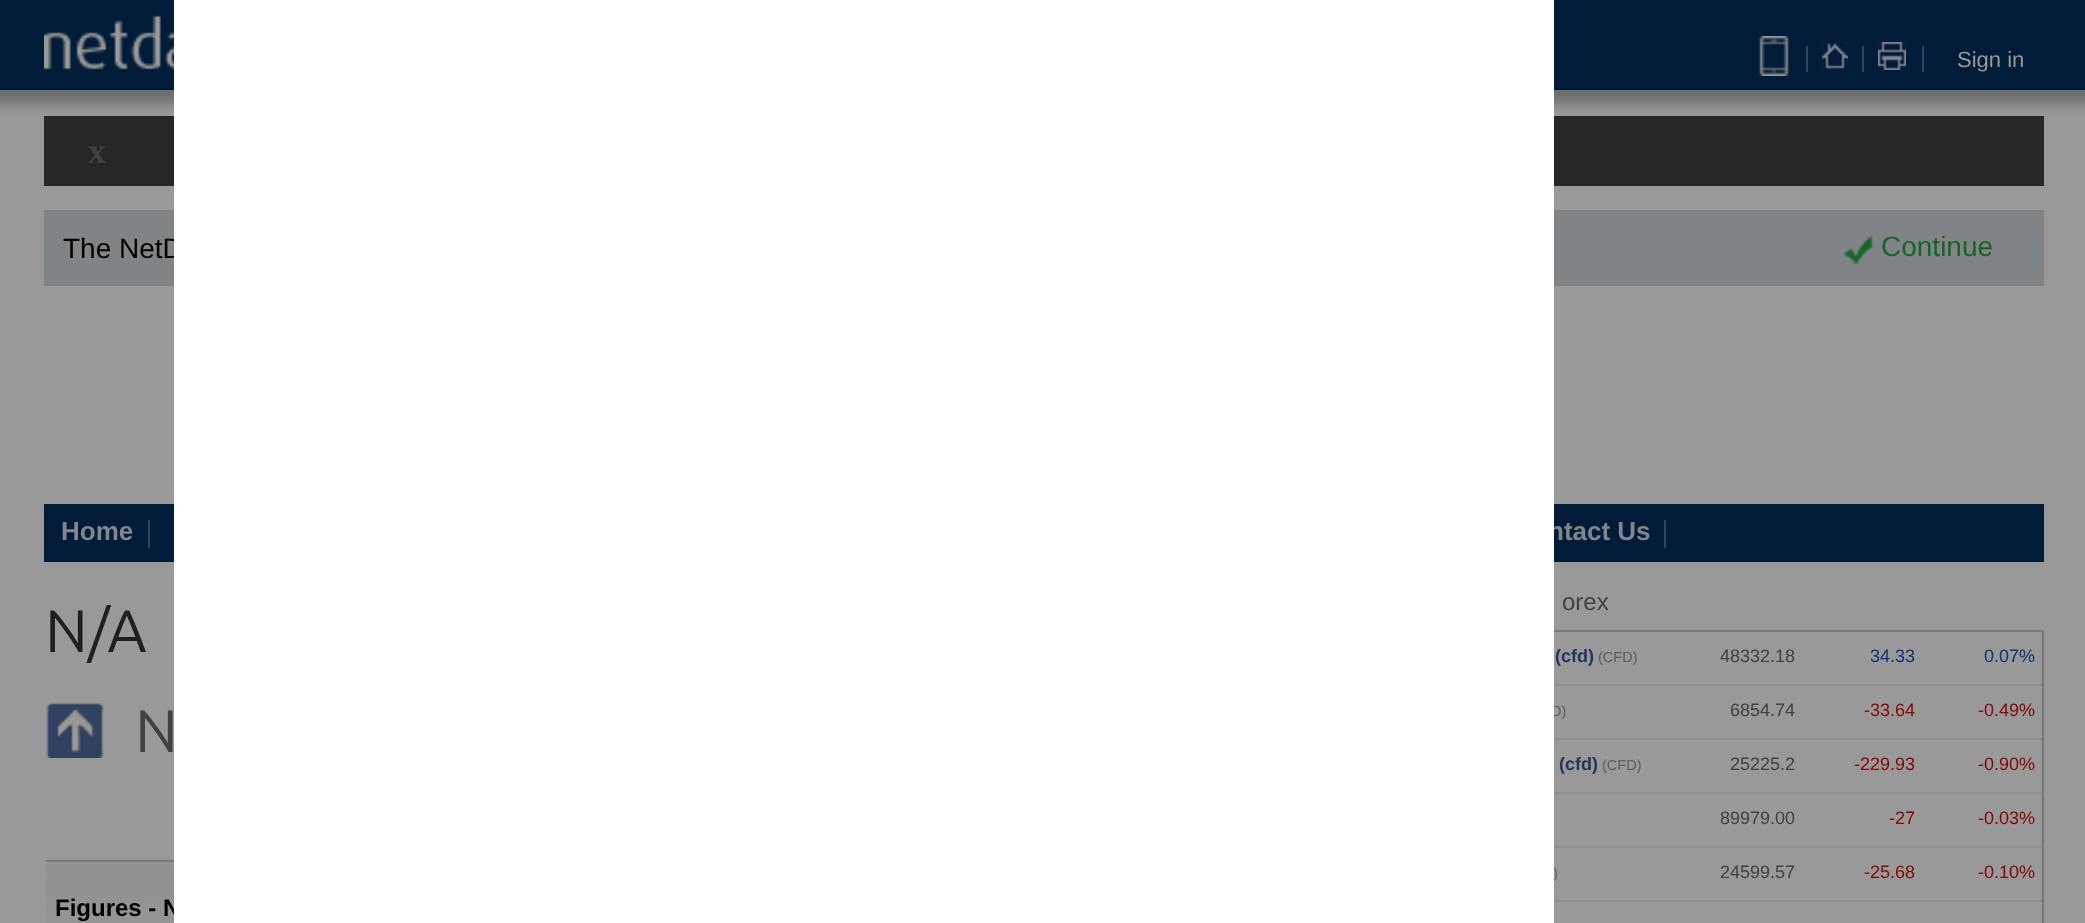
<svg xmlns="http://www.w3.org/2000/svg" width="2085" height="923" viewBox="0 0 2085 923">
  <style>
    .t1 { font: 28px Liberation Sans; fill: #000; }
    .t2 { font: bold 26px Liberation Sans; fill: #82858c; }
    .t3 { font: bold 24px Liberation Sans; fill: #000; }
    .t4 { font: 14.5px Liberation Sans; fill: #5c5c5c; }
    .t5 { font: 22px Liberation Sans; fill: #999; }
    .t6 { font: bold 36px Liberation Serif; fill: #414141; }
    .t7 { font: 28px Liberation Sans; fill: #186428; }
    .t8 { font: 60px Ubuntu; fill: #1f1f1f; }
    .t9 { font: 60px Ubuntu; fill: #414141; }
    .t10 { font: 24px Liberation Sans; fill: #414141; }
    .t11 { font: bold 18px Liberation Sans; fill: #23355b; }
    .t12 { font: 18px Liberation Sans; fill: #414141; }
    .t13 { font: 18px Liberation Sans; fill: #13326f; }
    .t14 { font: 18px Liberation Sans; fill: #820808; }
  </style>
  <rect width="100%" height="100%" fill="#999"/>
  <rect x="0" y="0" width="2085" height="90" fill="#001c38"/>
  <image x="0" y="90" width="2085" height="26" href="images/1.png"/>
  <image x="44" y="90" width="2000" height="26" href="images/2.png"/>
  <rect x="44" y="116" width="2000" height="70" fill="#262626"/>
  <rect x="44" y="210" width="2000" height="76" fill="#818486"/>
  <text x="63" y="258" class="t1">The NetD</text>
  <rect x="44" y="504" width="2000" height="58" fill="#001c38"/>
  <text x="1548" y="540" class="t2">ntact Us</text>
  <image x="46" y="860" width="128" height="63" href="images/9.png"/>
  <text x="55" y="916" class="t3">Figures - N</text>
  <text x="1551" y="716" class="t4">D)</text>
  <text x="1553" y="878" class="t4">)</text>
  <rect x="174" y="0" width="1380" height="923" fill="#fff"/>
  <image x="44" y="14" width="130" height="64" href="images/3.png"/>
  <rect x="1806" y="46" width="2" height="26" fill="#314162"/>
  <image x="1759" y="36" width="30" height="40" href="images/4.png"/>
  <rect x="1862" y="46" width="2" height="26" fill="#314162"/>
  <image x="1822" y="42" width="26" height="27" href="images/5.png"/>
  <rect x="1922" y="46" width="2" height="26" fill="#314162"/>
  <image x="1878" y="42" width="28" height="28" href="images/6.png"/>
  <text x="1957" y="67" class="t5">Sign in</text>
  <text x="88" y="163" class="t6">x</text>
  <image x="1844" y="235" width="30" height="29" href="images/7.png"/>
  <text x="1881" y="256" class="t7">Continue</text>
  <text x="61" y="540" class="t2">Home</text>
  <rect x="148" y="520" width="2" height="28" fill="#324162"/>
  <rect x="1664" y="520" width="2" height="28" fill="#324162"/>
  <text x="45" y="652" class="t8">N/A</text>
  <image x="46" y="702" width="58" height="56" href="images/8.png"/>
  <text x="135" y="752" class="t9">N</text>
  <rect x="1554" y="630" width="490" height="2" fill="#777a7f"/>
  <text x="1562" y="610" class="t10">orex</text>
  <rect x="2042" y="632" width="2" height="291" fill="#767676"/>
  <rect x="1554" y="684" width="488" height="2" fill="#8f8f8f"/>
  <text x="1555" y="662" class="t11">(cfd)</text>
  <text x="1598" y="662" class="t4">(CFD)</text>
  <text x="1720" y="662" class="t12">48332.18</text>
  <text x="1870" y="662" class="t13">34.33</text>
  <text x="1984" y="662" class="t13">0.07%</text>
  <rect x="1554" y="738" width="488" height="2" fill="#8f8f8f"/>
  <text x="1730" y="716" class="t12">6854.74</text>
  <text x="1864" y="716" class="t14">-33.64</text>
  <text x="1978" y="716" class="t14">-0.49%</text>
  <rect x="1554" y="792" width="488" height="2" fill="#8f8f8f"/>
  <text x="1559" y="770" class="t11">(cfd)</text>
  <text x="1602" y="770" class="t4">(CFD)</text>
  <text x="1730" y="770" class="t12">25225.2</text>
  <text x="1854" y="770" class="t14">-229.93</text>
  <text x="1978" y="770" class="t14">-0.90%</text>
  <rect x="1554" y="846" width="488" height="2" fill="#8f8f8f"/>
  <text x="1720" y="824" class="t12">89979.00</text>
  <text x="1889" y="824" class="t14">-27</text>
  <text x="1978" y="824" class="t14">-0.03%</text>
  <rect x="1554" y="900" width="488" height="2" fill="#8f8f8f"/>
  <text x="1720" y="878" class="t12">24599.57</text>
  <text x="1864" y="878" class="t14">-25.68</text>
  <text x="1978" y="878" class="t14">-0.10%</text>
</svg>
